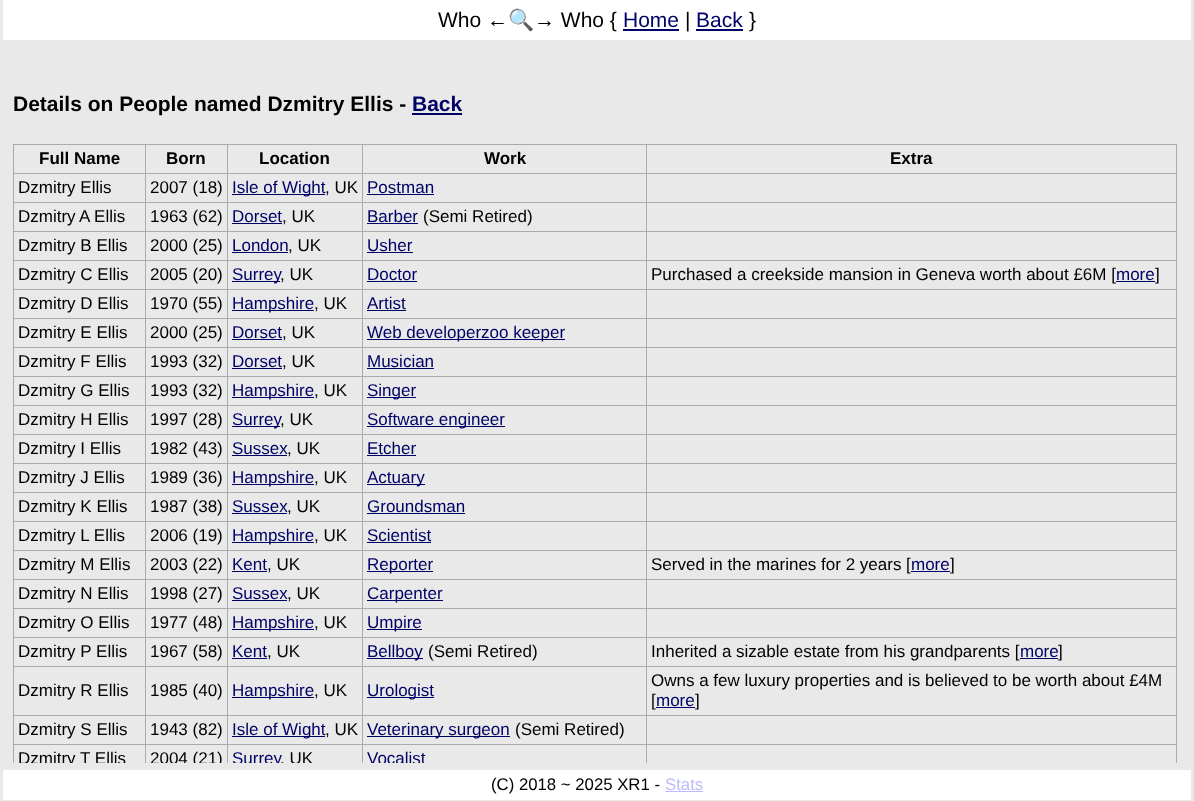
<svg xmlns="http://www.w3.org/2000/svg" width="1194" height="801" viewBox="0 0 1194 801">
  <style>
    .t1 { font: 21px Liberation Sans; fill: #000; }
    .t2 { font: 21px Noto Color Emoji; fill: #000; }
    .t3 { font: 21px Liberation Sans; fill: #006; }
    .t4 { font: bold 21px Liberation Sans; fill: #000; }
    .t5 { font: bold 21px Liberation Sans; fill: #006; }
    .t6 { font: bold 17px Liberation Sans; fill: #000; }
    .t7 { font: 17px Liberation Sans; fill: #000; }
    .t8 { font: 17px Liberation Sans; fill: #006; }
    .t9 { font: 16.75px Liberation Sans; fill: #000; }
    .t10 { font: 16.75px Liberation Sans; fill: #bbf; }
  </style>
  <defs>
    <clipPath id="clip1"><rect x="13" y="40" width="1176" height="723"/></clipPath>
  </defs>
  <rect width="100%" height="100%" fill="#e9e9e9"/>
  <rect x="3" y="0" width="1188" height="40" fill="#fff"/>
  <text x="438" y="27" class="t1">Who ←</text>
  <text x="508" y="27" class="t2">🔍</text>
  <text x="534" y="27" class="t1">→ Who {</text>
  <text x="623" y="27" class="t3">Home</text>
  <rect x="623" y="29" width="56" height="2" fill="#006"/>
  <text x="685" y="27" class="t1">|</text>
  <text x="696" y="27" class="t3">Back</text>
  <rect x="696" y="29" width="47" height="2" fill="#006"/>
  <text x="749" y="27" class="t1">}</text>
  <text x="13" y="111" class="t4">Details on People named Dzmitry Ellis -</text>
  <text x="412" y="111" class="t5">Back</text>
  <rect x="412" y="113" width="50" height="2" fill="#006"/>
  <rect x="13" y="144" width="1164" height="1" fill="#aaa"/>
  <rect x="1176" y="144" width="1" height="619" fill="#aaa"/>
  <rect x="13" y="144" width="1" height="619" fill="#aaa"/>
  <text x="39" y="164" class="t6">Full Name</text>
  <rect x="646" y="173" width="531" height="1" fill="#aaa"/>
  <rect x="646" y="202" width="531" height="1" fill="#aaa"/>
  <rect x="646" y="231" width="531" height="1" fill="#aaa"/>
  <rect x="646" y="260" width="531" height="1" fill="#aaa"/>
  <rect x="646" y="289" width="531" height="1" fill="#aaa"/>
  <rect x="646" y="318" width="531" height="1" fill="#aaa"/>
  <rect x="646" y="347" width="531" height="1" fill="#aaa"/>
  <rect x="646" y="376" width="531" height="1" fill="#aaa"/>
  <rect x="646" y="405" width="531" height="1" fill="#aaa"/>
  <rect x="646" y="434" width="531" height="1" fill="#aaa"/>
  <rect x="646" y="463" width="531" height="1" fill="#aaa"/>
  <rect x="646" y="492" width="531" height="1" fill="#aaa"/>
  <rect x="646" y="521" width="531" height="1" fill="#aaa"/>
  <rect x="646" y="550" width="531" height="1" fill="#aaa"/>
  <rect x="646" y="579" width="531" height="1" fill="#aaa"/>
  <rect x="646" y="608" width="531" height="1" fill="#aaa"/>
  <rect x="646" y="637" width="531" height="1" fill="#aaa"/>
  <rect x="646" y="666" width="531" height="1" fill="#aaa"/>
  <rect x="646" y="715" width="531" height="1" fill="#aaa"/>
  <rect x="646" y="744" width="531" height="1" fill="#aaa"/>
  <rect x="646" y="744" width="1" height="19" fill="#aaa"/>
  <rect x="362" y="744" width="285" height="1" fill="#aaa"/>
  <rect x="646" y="715" width="1" height="30" fill="#aaa"/>
  <rect x="362" y="715" width="285" height="1" fill="#aaa"/>
  <rect x="646" y="666" width="1" height="50" fill="#aaa"/>
  <rect x="362" y="666" width="285" height="1" fill="#aaa"/>
  <rect x="646" y="637" width="1" height="30" fill="#aaa"/>
  <rect x="362" y="637" width="285" height="1" fill="#aaa"/>
  <rect x="646" y="608" width="1" height="30" fill="#aaa"/>
  <rect x="362" y="608" width="285" height="1" fill="#aaa"/>
  <rect x="646" y="579" width="1" height="30" fill="#aaa"/>
  <rect x="362" y="579" width="285" height="1" fill="#aaa"/>
  <rect x="646" y="550" width="1" height="30" fill="#aaa"/>
  <rect x="362" y="550" width="285" height="1" fill="#aaa"/>
  <rect x="646" y="521" width="1" height="30" fill="#aaa"/>
  <rect x="362" y="521" width="285" height="1" fill="#aaa"/>
  <rect x="646" y="492" width="1" height="30" fill="#aaa"/>
  <rect x="362" y="492" width="285" height="1" fill="#aaa"/>
  <rect x="646" y="463" width="1" height="30" fill="#aaa"/>
  <rect x="362" y="463" width="285" height="1" fill="#aaa"/>
  <rect x="646" y="434" width="1" height="30" fill="#aaa"/>
  <rect x="362" y="434" width="285" height="1" fill="#aaa"/>
  <rect x="646" y="405" width="1" height="30" fill="#aaa"/>
  <rect x="362" y="405" width="285" height="1" fill="#aaa"/>
  <rect x="646" y="376" width="1" height="30" fill="#aaa"/>
  <rect x="362" y="376" width="285" height="1" fill="#aaa"/>
  <rect x="646" y="347" width="1" height="30" fill="#aaa"/>
  <rect x="362" y="347" width="285" height="1" fill="#aaa"/>
  <rect x="646" y="318" width="1" height="30" fill="#aaa"/>
  <rect x="362" y="318" width="285" height="1" fill="#aaa"/>
  <rect x="646" y="289" width="1" height="30" fill="#aaa"/>
  <rect x="362" y="289" width="285" height="1" fill="#aaa"/>
  <rect x="646" y="260" width="1" height="30" fill="#aaa"/>
  <rect x="362" y="260" width="285" height="1" fill="#aaa"/>
  <rect x="646" y="231" width="1" height="30" fill="#aaa"/>
  <rect x="362" y="231" width="285" height="1" fill="#aaa"/>
  <rect x="646" y="202" width="1" height="30" fill="#aaa"/>
  <rect x="362" y="202" width="285" height="1" fill="#aaa"/>
  <rect x="646" y="173" width="1" height="30" fill="#aaa"/>
  <rect x="362" y="173" width="285" height="1" fill="#aaa"/>
  <rect x="362" y="744" width="1" height="19" fill="#aaa"/>
  <rect x="227" y="744" width="136" height="1" fill="#aaa"/>
  <rect x="362" y="715" width="1" height="30" fill="#aaa"/>
  <rect x="227" y="715" width="136" height="1" fill="#aaa"/>
  <rect x="362" y="666" width="1" height="50" fill="#aaa"/>
  <rect x="227" y="666" width="136" height="1" fill="#aaa"/>
  <rect x="362" y="637" width="1" height="30" fill="#aaa"/>
  <rect x="227" y="637" width="136" height="1" fill="#aaa"/>
  <rect x="362" y="608" width="1" height="30" fill="#aaa"/>
  <rect x="227" y="608" width="136" height="1" fill="#aaa"/>
  <rect x="362" y="579" width="1" height="30" fill="#aaa"/>
  <rect x="227" y="579" width="136" height="1" fill="#aaa"/>
  <rect x="362" y="550" width="1" height="30" fill="#aaa"/>
  <rect x="227" y="550" width="136" height="1" fill="#aaa"/>
  <rect x="362" y="521" width="1" height="30" fill="#aaa"/>
  <rect x="227" y="521" width="136" height="1" fill="#aaa"/>
  <rect x="362" y="492" width="1" height="30" fill="#aaa"/>
  <rect x="227" y="492" width="136" height="1" fill="#aaa"/>
  <rect x="362" y="463" width="1" height="30" fill="#aaa"/>
  <rect x="227" y="463" width="136" height="1" fill="#aaa"/>
  <rect x="362" y="434" width="1" height="30" fill="#aaa"/>
  <rect x="227" y="434" width="136" height="1" fill="#aaa"/>
  <rect x="362" y="405" width="1" height="30" fill="#aaa"/>
  <rect x="227" y="405" width="136" height="1" fill="#aaa"/>
  <rect x="362" y="376" width="1" height="30" fill="#aaa"/>
  <rect x="227" y="376" width="136" height="1" fill="#aaa"/>
  <rect x="362" y="347" width="1" height="30" fill="#aaa"/>
  <rect x="227" y="347" width="136" height="1" fill="#aaa"/>
  <rect x="362" y="318" width="1" height="30" fill="#aaa"/>
  <rect x="227" y="318" width="136" height="1" fill="#aaa"/>
  <rect x="362" y="289" width="1" height="30" fill="#aaa"/>
  <rect x="227" y="289" width="136" height="1" fill="#aaa"/>
  <rect x="362" y="260" width="1" height="30" fill="#aaa"/>
  <rect x="227" y="260" width="136" height="1" fill="#aaa"/>
  <rect x="362" y="231" width="1" height="30" fill="#aaa"/>
  <rect x="227" y="231" width="136" height="1" fill="#aaa"/>
  <rect x="362" y="202" width="1" height="30" fill="#aaa"/>
  <rect x="227" y="202" width="136" height="1" fill="#aaa"/>
  <rect x="362" y="173" width="1" height="30" fill="#aaa"/>
  <rect x="227" y="173" width="136" height="1" fill="#aaa"/>
  <rect x="227" y="744" width="1" height="19" fill="#aaa"/>
  <rect x="145" y="744" width="83" height="1" fill="#aaa"/>
  <rect x="227" y="715" width="1" height="30" fill="#aaa"/>
  <rect x="145" y="715" width="83" height="1" fill="#aaa"/>
  <rect x="227" y="666" width="1" height="50" fill="#aaa"/>
  <rect x="145" y="666" width="83" height="1" fill="#aaa"/>
  <rect x="227" y="637" width="1" height="30" fill="#aaa"/>
  <rect x="145" y="637" width="83" height="1" fill="#aaa"/>
  <rect x="227" y="608" width="1" height="30" fill="#aaa"/>
  <rect x="145" y="608" width="83" height="1" fill="#aaa"/>
  <rect x="227" y="579" width="1" height="30" fill="#aaa"/>
  <rect x="145" y="579" width="83" height="1" fill="#aaa"/>
  <rect x="227" y="550" width="1" height="30" fill="#aaa"/>
  <rect x="145" y="550" width="83" height="1" fill="#aaa"/>
  <rect x="227" y="521" width="1" height="30" fill="#aaa"/>
  <rect x="145" y="521" width="83" height="1" fill="#aaa"/>
  <rect x="227" y="492" width="1" height="30" fill="#aaa"/>
  <rect x="145" y="492" width="83" height="1" fill="#aaa"/>
  <rect x="227" y="463" width="1" height="30" fill="#aaa"/>
  <rect x="145" y="463" width="83" height="1" fill="#aaa"/>
  <rect x="227" y="434" width="1" height="30" fill="#aaa"/>
  <rect x="145" y="434" width="83" height="1" fill="#aaa"/>
  <rect x="227" y="405" width="1" height="30" fill="#aaa"/>
  <rect x="145" y="405" width="83" height="1" fill="#aaa"/>
  <rect x="227" y="376" width="1" height="30" fill="#aaa"/>
  <rect x="145" y="376" width="83" height="1" fill="#aaa"/>
  <rect x="227" y="347" width="1" height="30" fill="#aaa"/>
  <rect x="145" y="347" width="83" height="1" fill="#aaa"/>
  <rect x="227" y="318" width="1" height="30" fill="#aaa"/>
  <rect x="145" y="318" width="83" height="1" fill="#aaa"/>
  <rect x="227" y="289" width="1" height="30" fill="#aaa"/>
  <rect x="145" y="289" width="83" height="1" fill="#aaa"/>
  <rect x="227" y="260" width="1" height="30" fill="#aaa"/>
  <rect x="145" y="260" width="83" height="1" fill="#aaa"/>
  <rect x="227" y="231" width="1" height="30" fill="#aaa"/>
  <rect x="145" y="231" width="83" height="1" fill="#aaa"/>
  <rect x="227" y="202" width="1" height="30" fill="#aaa"/>
  <rect x="145" y="202" width="83" height="1" fill="#aaa"/>
  <rect x="227" y="173" width="1" height="30" fill="#aaa"/>
  <rect x="145" y="173" width="83" height="1" fill="#aaa"/>
  <rect x="145" y="744" width="1" height="19" fill="#aaa"/>
  <rect x="13" y="744" width="133" height="1" fill="#aaa"/>
  <rect x="145" y="715" width="1" height="30" fill="#aaa"/>
  <rect x="13" y="715" width="133" height="1" fill="#aaa"/>
  <rect x="145" y="666" width="1" height="50" fill="#aaa"/>
  <rect x="13" y="666" width="133" height="1" fill="#aaa"/>
  <rect x="145" y="637" width="1" height="30" fill="#aaa"/>
  <rect x="13" y="637" width="133" height="1" fill="#aaa"/>
  <rect x="145" y="608" width="1" height="30" fill="#aaa"/>
  <rect x="13" y="608" width="133" height="1" fill="#aaa"/>
  <rect x="145" y="579" width="1" height="30" fill="#aaa"/>
  <rect x="13" y="579" width="133" height="1" fill="#aaa"/>
  <rect x="145" y="550" width="1" height="30" fill="#aaa"/>
  <rect x="13" y="550" width="133" height="1" fill="#aaa"/>
  <rect x="145" y="521" width="1" height="30" fill="#aaa"/>
  <rect x="13" y="521" width="133" height="1" fill="#aaa"/>
  <rect x="145" y="492" width="1" height="30" fill="#aaa"/>
  <rect x="13" y="492" width="133" height="1" fill="#aaa"/>
  <rect x="145" y="463" width="1" height="30" fill="#aaa"/>
  <rect x="13" y="463" width="133" height="1" fill="#aaa"/>
  <rect x="145" y="434" width="1" height="30" fill="#aaa"/>
  <rect x="13" y="434" width="133" height="1" fill="#aaa"/>
  <rect x="145" y="405" width="1" height="30" fill="#aaa"/>
  <rect x="13" y="405" width="133" height="1" fill="#aaa"/>
  <rect x="145" y="376" width="1" height="30" fill="#aaa"/>
  <rect x="13" y="376" width="133" height="1" fill="#aaa"/>
  <rect x="145" y="347" width="1" height="30" fill="#aaa"/>
  <rect x="13" y="347" width="133" height="1" fill="#aaa"/>
  <rect x="145" y="318" width="1" height="30" fill="#aaa"/>
  <rect x="13" y="318" width="133" height="1" fill="#aaa"/>
  <rect x="145" y="289" width="1" height="30" fill="#aaa"/>
  <rect x="13" y="289" width="133" height="1" fill="#aaa"/>
  <rect x="145" y="260" width="1" height="30" fill="#aaa"/>
  <rect x="13" y="260" width="133" height="1" fill="#aaa"/>
  <rect x="145" y="231" width="1" height="30" fill="#aaa"/>
  <rect x="13" y="231" width="133" height="1" fill="#aaa"/>
  <rect x="145" y="202" width="1" height="30" fill="#aaa"/>
  <rect x="13" y="202" width="133" height="1" fill="#aaa"/>
  <rect x="145" y="173" width="1" height="30" fill="#aaa"/>
  <rect x="13" y="173" width="133" height="1" fill="#aaa"/>
  <rect x="145" y="144" width="1" height="30" fill="#aaa"/>
  <text x="166" y="164" class="t6">Born</text>
  <rect x="227" y="144" width="1" height="30" fill="#aaa"/>
  <text x="259" y="164" class="t6">Location</text>
  <rect x="362" y="144" width="1" height="30" fill="#aaa"/>
  <text x="484" y="164" class="t6">Work</text>
  <rect x="646" y="144" width="1" height="30" fill="#aaa"/>
  <text x="890" y="164" class="t6">Extra</text>
  <text x="18" y="193" class="t7">Dzmitry Ellis</text>
  <text x="150" y="193" class="t7">2007 (18)</text>
  <rect x="232" y="194" width="93" height="1" fill="#006"/>
  <text x="232" y="193" class="t8">Isle of Wight</text>
  <text x="325" y="193" class="t7">, UK</text>
  <text x="367" y="193" class="t8">Postman</text>
  <rect x="367" y="194" width="67" height="1" fill="#006"/>
  <text x="18" y="222" class="t7">Dzmitry</text>
  <text x="79" y="222" class="t7">A Ellis</text>
  <text x="150" y="222" class="t7">1963 (62)</text>
  <text x="232" y="222" class="t8">Dorset</text>
  <rect x="232" y="223" width="50" height="1" fill="#006"/>
  <text x="282" y="222" class="t7">, UK</text>
  <text x="367" y="222" class="t8">Barber</text>
  <rect x="367" y="223" width="51" height="1" fill="#006"/>
  <text x="423" y="222" class="t7">(Semi Retired)</text>
  <text x="18" y="251" class="t7">Dzmitry B Ellis</text>
  <text x="150" y="251" class="t7">2000 (25)</text>
  <text x="232" y="251" class="t8">London</text>
  <rect x="232" y="252" width="56" height="1" fill="#006"/>
  <text x="288" y="251" class="t7">, UK</text>
  <text x="367" y="251" class="t8">Usher</text>
  <rect x="367" y="252" width="46" height="1" fill="#006"/>
  <text x="18" y="280" class="t7">Dzmitry C Ellis</text>
  <text x="150" y="280" class="t7">2005 (20)</text>
  <rect x="232" y="281" width="48" height="1" fill="#006"/>
  <text x="232" y="280" class="t8">Surrey</text>
  <text x="280" y="280" class="t7">, UK</text>
  <text x="367" y="280" class="t8">Doctor</text>
  <rect x="367" y="281" width="50" height="1" fill="#006"/>
  <text x="651" y="280" class="t7">Purchased a creekside mansion in Geneva worth about £6M [</text>
  <text x="1116" y="280" class="t8">more</text>
  <rect x="1116" y="281" width="39" height="1" fill="#006"/>
  <text x="1155" y="280" class="t7">]</text>
  <text x="18" y="309" class="t7">Dzmitry D Ellis</text>
  <text x="150" y="309" class="t7">1970 (55)</text>
  <rect x="232" y="310" width="82" height="1" fill="#006"/>
  <text x="232" y="309" class="t8">Hampshire</text>
  <text x="314" y="309" class="t7">, UK</text>
  <text x="367" y="309" class="t8">Artist</text>
  <rect x="367" y="310" width="39" height="1" fill="#006"/>
  <text x="18" y="338" class="t7">Dzmitry E Ellis</text>
  <text x="150" y="338" class="t7">2000 (25)</text>
  <text x="232" y="338" class="t8">Dorset</text>
  <rect x="232" y="339" width="50" height="1" fill="#006"/>
  <text x="282" y="338" class="t7">, UK</text>
  <rect x="367" y="339" width="198" height="1" fill="#006"/>
  <text x="367" y="338" class="t8">Web developerzoo keeper</text>
  <text x="18" y="367" class="t7">Dzmitry F Ellis</text>
  <text x="150" y="367" class="t7">1993 (32)</text>
  <text x="232" y="367" class="t8">Dorset</text>
  <rect x="232" y="368" width="50" height="1" fill="#006"/>
  <text x="282" y="367" class="t7">, UK</text>
  <text x="367" y="367" class="t8">Musician</text>
  <rect x="367" y="368" width="67" height="1" fill="#006"/>
  <text x="18" y="396" class="t7">Dzmitry G Ellis</text>
  <text x="150" y="396" class="t7">1993 (32)</text>
  <rect x="232" y="397" width="82" height="1" fill="#006"/>
  <text x="232" y="396" class="t8">Hampshire</text>
  <text x="314" y="396" class="t7">, UK</text>
  <rect x="367" y="397" width="49" height="1" fill="#006"/>
  <text x="367" y="396" class="t8">Singer</text>
  <text x="18" y="425" class="t7">Dzmitry H Ellis</text>
  <text x="150" y="425" class="t7">1997 (28)</text>
  <rect x="232" y="426" width="48" height="1" fill="#006"/>
  <text x="232" y="425" class="t8">Surrey</text>
  <text x="280" y="425" class="t7">, UK</text>
  <rect x="367" y="426" width="138" height="1" fill="#006"/>
  <text x="367" y="425" class="t8">Software engineer</text>
  <text x="18" y="454" class="t7">Dzmitry I Ellis</text>
  <text x="150" y="454" class="t7">1982 (43)</text>
  <text x="232" y="454" class="t8">Sussex</text>
  <rect x="232" y="455" width="55" height="1" fill="#006"/>
  <text x="287" y="454" class="t7">, UK</text>
  <text x="367" y="454" class="t8">Etcher</text>
  <rect x="367" y="455" width="49" height="1" fill="#006"/>
  <text x="18" y="483" class="t7">Dzmitry J Ellis</text>
  <text x="150" y="483" class="t7">1989 (36)</text>
  <rect x="232" y="484" width="82" height="1" fill="#006"/>
  <text x="232" y="483" class="t8">Hampshire</text>
  <text x="314" y="483" class="t7">, UK</text>
  <rect x="367" y="484" width="58" height="1" fill="#006"/>
  <text x="367" y="483" class="t8">Actuary</text>
  <text x="18" y="512" class="t7">Dzmitry K Ellis</text>
  <text x="150" y="512" class="t7">1987 (38)</text>
  <text x="232" y="512" class="t8">Sussex</text>
  <rect x="232" y="513" width="55" height="1" fill="#006"/>
  <text x="287" y="512" class="t7">, UK</text>
  <text x="367" y="512" class="t8">Groundsman</text>
  <rect x="367" y="513" width="98" height="1" fill="#006"/>
  <text x="18" y="541" class="t7">Dzmitry L Ellis</text>
  <text x="150" y="541" class="t7">2006 (19)</text>
  <rect x="232" y="542" width="82" height="1" fill="#006"/>
  <text x="232" y="541" class="t8">Hampshire</text>
  <text x="314" y="541" class="t7">, UK</text>
  <text x="367" y="541" class="t8">Scientist</text>
  <rect x="367" y="542" width="64" height="1" fill="#006"/>
  <text x="18" y="570" class="t7">Dzmitry M Ellis</text>
  <text x="150" y="570" class="t7">2003 (22)</text>
  <text x="232" y="570" class="t8">Kent</text>
  <rect x="232" y="571" width="35" height="1" fill="#006"/>
  <text x="267" y="570" class="t7">, UK</text>
  <rect x="367" y="571" width="66" height="1" fill="#006"/>
  <text x="367" y="570" class="t8">Reporter</text>
  <text x="651" y="570" class="t7">Served in the marines for 2 years [</text>
  <text x="911" y="570" class="t8">more</text>
  <rect x="911" y="571" width="39" height="1" fill="#006"/>
  <text x="950" y="570" class="t7">]</text>
  <text x="18" y="599" class="t7">Dzmitry N Ellis</text>
  <text x="150" y="599" class="t7">1998 (27)</text>
  <text x="232" y="599" class="t8">Sussex</text>
  <rect x="232" y="600" width="55" height="1" fill="#006"/>
  <text x="287" y="599" class="t7">, UK</text>
  <rect x="367" y="600" width="76" height="1" fill="#006"/>
  <text x="367" y="599" class="t8">Carpenter</text>
  <text x="18" y="628" class="t7">Dzmitry O Ellis</text>
  <text x="150" y="628" class="t7">1977 (48)</text>
  <rect x="232" y="629" width="82" height="1" fill="#006"/>
  <text x="232" y="628" class="t8">Hampshire</text>
  <text x="314" y="628" class="t7">, UK</text>
  <rect x="367" y="629" width="55" height="1" fill="#006"/>
  <text x="367" y="628" class="t8">Umpire</text>
  <text x="18" y="657" class="t7">Dzmitry P Ellis</text>
  <text x="150" y="657" class="t7">1967 (58)</text>
  <text x="232" y="657" class="t8">Kent</text>
  <rect x="232" y="658" width="35" height="1" fill="#006"/>
  <text x="267" y="657" class="t7">, UK</text>
  <rect x="367" y="658" width="56" height="1" fill="#006"/>
  <text x="367" y="657" class="t8">Bellboy</text>
  <text x="428" y="657" class="t7">(Semi Retired)</text>
  <text x="651" y="657" class="t7">Inherited a sizable estate from his grandparents [</text>
  <text x="1020" y="657" class="t8">more</text>
  <rect x="1020" y="658" width="38" height="1" fill="#006"/>
  <text x="1058" y="657" class="t7">]</text>
  <text x="18" y="696" class="t7">Dzmitry R Ellis</text>
  <text x="150" y="696" class="t7">1985 (40)</text>
  <rect x="232" y="697" width="82" height="1" fill="#006"/>
  <text x="232" y="696" class="t8">Hampshire</text>
  <text x="314" y="696" class="t7">, UK</text>
  <rect x="367" y="697" width="67" height="1" fill="#006"/>
  <text x="367" y="696" class="t8">Urologist</text>
  <text x="651" y="686" class="t7">Owns a few luxury properties and is believed to be worth about £4M</text>
  <text x="651" y="706" class="t7">[</text>
  <text x="656" y="706" class="t8">more</text>
  <rect x="656" y="707" width="39" height="1" fill="#006"/>
  <text x="695" y="706" class="t7">]</text>
  <text x="18" y="735" class="t7">Dzmitry S Ellis</text>
  <text x="150" y="735" class="t7">1943 (82)</text>
  <rect x="232" y="736" width="93" height="1" fill="#006"/>
  <text x="232" y="735" class="t8">Isle of Wight</text>
  <text x="325" y="735" class="t7">, UK</text>
  <rect x="367" y="736" width="143" height="1" fill="#006"/>
  <text x="367" y="735" class="t8">Veterinary surgeon</text>
  <text x="515" y="735" class="t7">(Semi Retired)</text>
  <g clip-path="url(#clip1)">
    <text x="18" y="764" class="t7">Dzmitry</text>
    <text x="80" y="764" class="t7">T Ellis</text>
    <text x="150" y="764" class="t7">2004 (21)</text>
    <text x="232" y="764" class="t8">Surrey</text>
    <text x="280" y="764" class="t7">, UK</text>
    <text x="367" y="764" class="t8">Vocalist</text>
  </g>
  <rect x="3" y="770" width="1188" height="30" fill="#fff"/>
  <text x="491" y="790" class="t9">(C) 2018 ~ 2025 XR1 -</text>
  <text x="665" y="790" class="t10">Stats</text>
  <rect x="665" y="791" width="38" height="1" fill="#bbf"/>
</svg>
